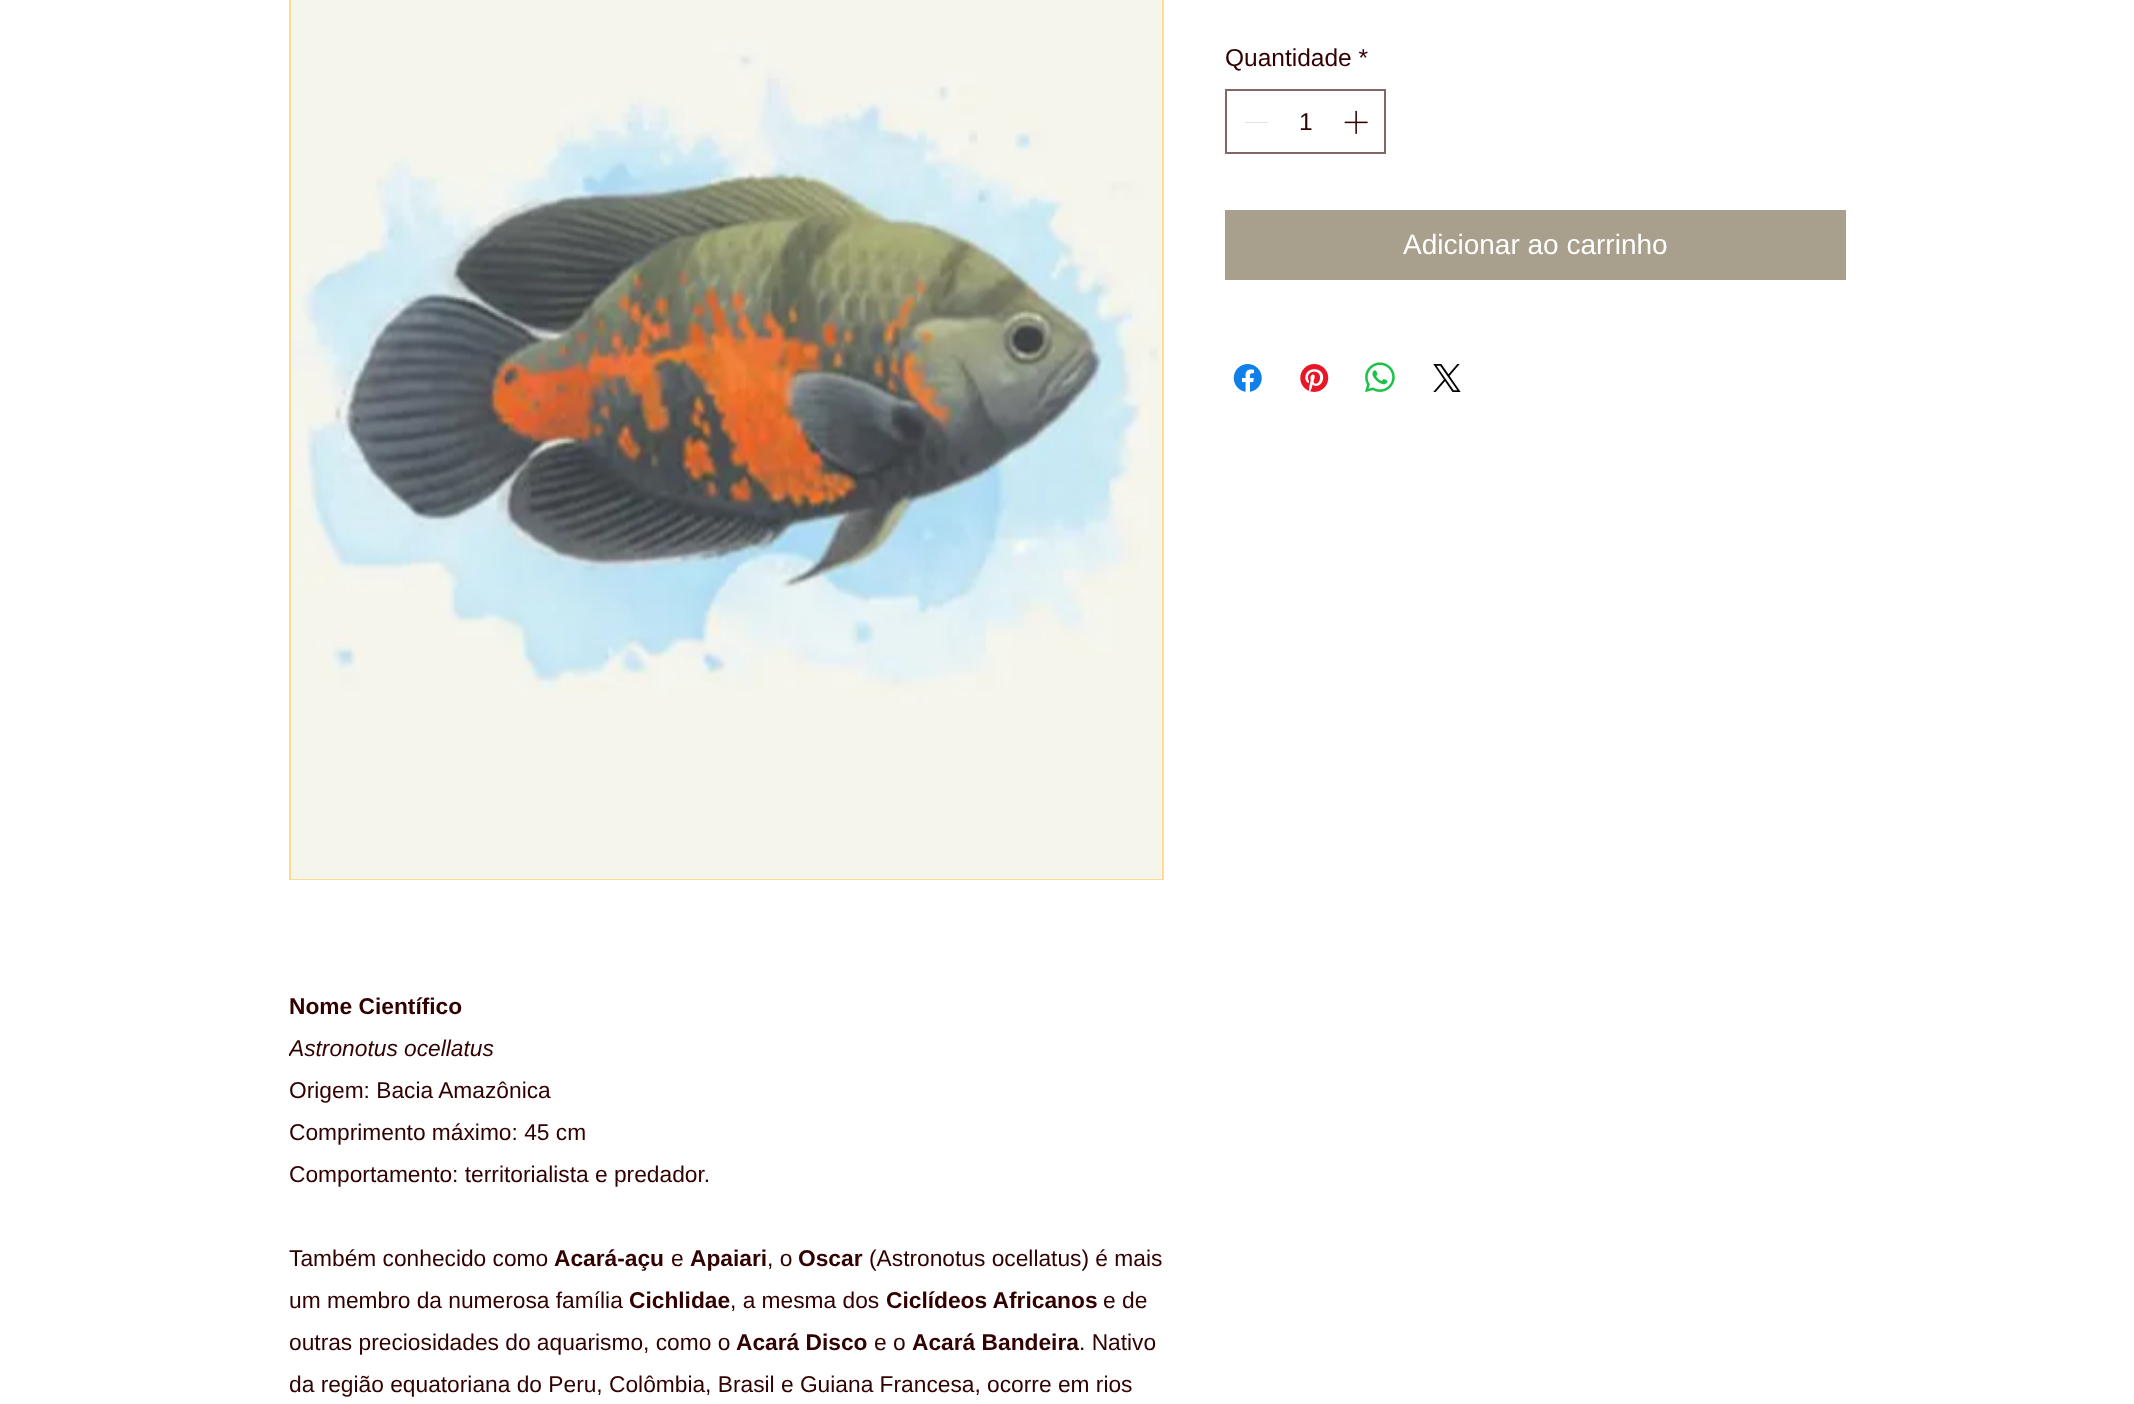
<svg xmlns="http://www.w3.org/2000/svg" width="2134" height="1404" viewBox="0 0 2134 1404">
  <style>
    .t1 { font: 24.5px Liberation Sans; fill: #310000; }
    .t2 { font: 28px Liberation Sans; fill: #fff; }
    .t3 { font: bold 22.75px Liberation Sans; fill: #310000; }
    .t4 { font: italic 22.75px Liberation Sans; fill: #310000; }
    .t5 { font: 22.75px Liberation Sans; fill: #310000; }
  </style>
  <defs>
    <clipPath id="clip1"><rect x="289" y="985" width="875" height="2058"/></clipPath>
  </defs>
  <rect width="100%" height="100%" fill="#fff"/>
  <text x="1225" y="66" class="t1">Quantidade *</text>
  <rect x="1226" y="90" width="159" height="63" fill="none" stroke="#836666" stroke-width="2"/>
  <rect x="1245" y="122" width="23" height="1" fill="#e3e3e3"/>
  <text x="1299" y="130" class="t1">1</text>
  <image x="1344" y="110" width="24" height="24" href="images/1.png"/>
  <rect x="1225" y="210" width="621" height="70" fill="#a89f8c"/>
  <text x="1403" y="254" class="t2">Adicionar ao carrinho</text>
  <image x="1233" y="364" width="29" height="28" href="images/2.png"/>
  <image x="1300" y="364" width="29" height="28" href="images/3.png"/>
  <image x="1365" y="362" width="30" height="31" href="images/4.png"/>
  <image x="1433" y="364" width="28" height="28" href="images/5.png"/>
  <rect x="290" y="-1" width="873" height="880" fill="none" stroke="#ffdb90" stroke-width="2"/>
  <image x="291" y="0" width="871" height="879" href="images/6.png"/>
  <text x="289" y="1014" class="t3">Nome Científico</text>
  <g clip-path="url(#clip1)">
    <text x="289" y="1056" class="t4">Astronotus ocellatus</text>
  </g>
  <text x="289" y="1098" class="t5">Origem: Bacia Amazônica</text>
  <text x="289" y="1140" class="t5">Comprimento máximo: 45 cm</text>
  <text x="289" y="1182" class="t5">Comportamento: territorialista e predador.</text>
  <text x="289" y="1266" class="t5">Também conhecido como</text>
  <text x="554" y="1266" class="t3">Acará-açu</text>
  <text x="671" y="1266" class="t5">e</text>
  <text x="690" y="1266" class="t3">Apaiari</text>
  <text x="767" y="1266" class="t5">, o</text>
  <text x="798" y="1266" class="t3">Oscar</text>
  <text x="869" y="1266" class="t5">(Astronotus ocellatus) é mais</text>
  <text x="289" y="1308" class="t5">um membro da numerosa família</text>
  <text x="629" y="1308" class="t3">Cichlidae</text>
  <text x="730" y="1308" class="t5">, a mesma dos</text>
  <text x="886" y="1308" class="t3">Ciclídeos Africanos</text>
  <text x="1103" y="1308" class="t5">e de</text>
  <text x="289" y="1350" class="t5">outras preciosidades do aquarismo, como o</text>
  <text x="736" y="1350" class="t3">Acará Disco</text>
  <text x="874" y="1350" class="t5">e o</text>
  <text x="912" y="1350" class="t3">Acará Bandeira</text>
  <text x="1079" y="1350" class="t5">. Nativo</text>
  <text x="289" y="1392" class="t5">da região equatoriana do Peru, Colômbia, Brasil e Guiana Francesa, ocorre em rios</text>
</svg>
